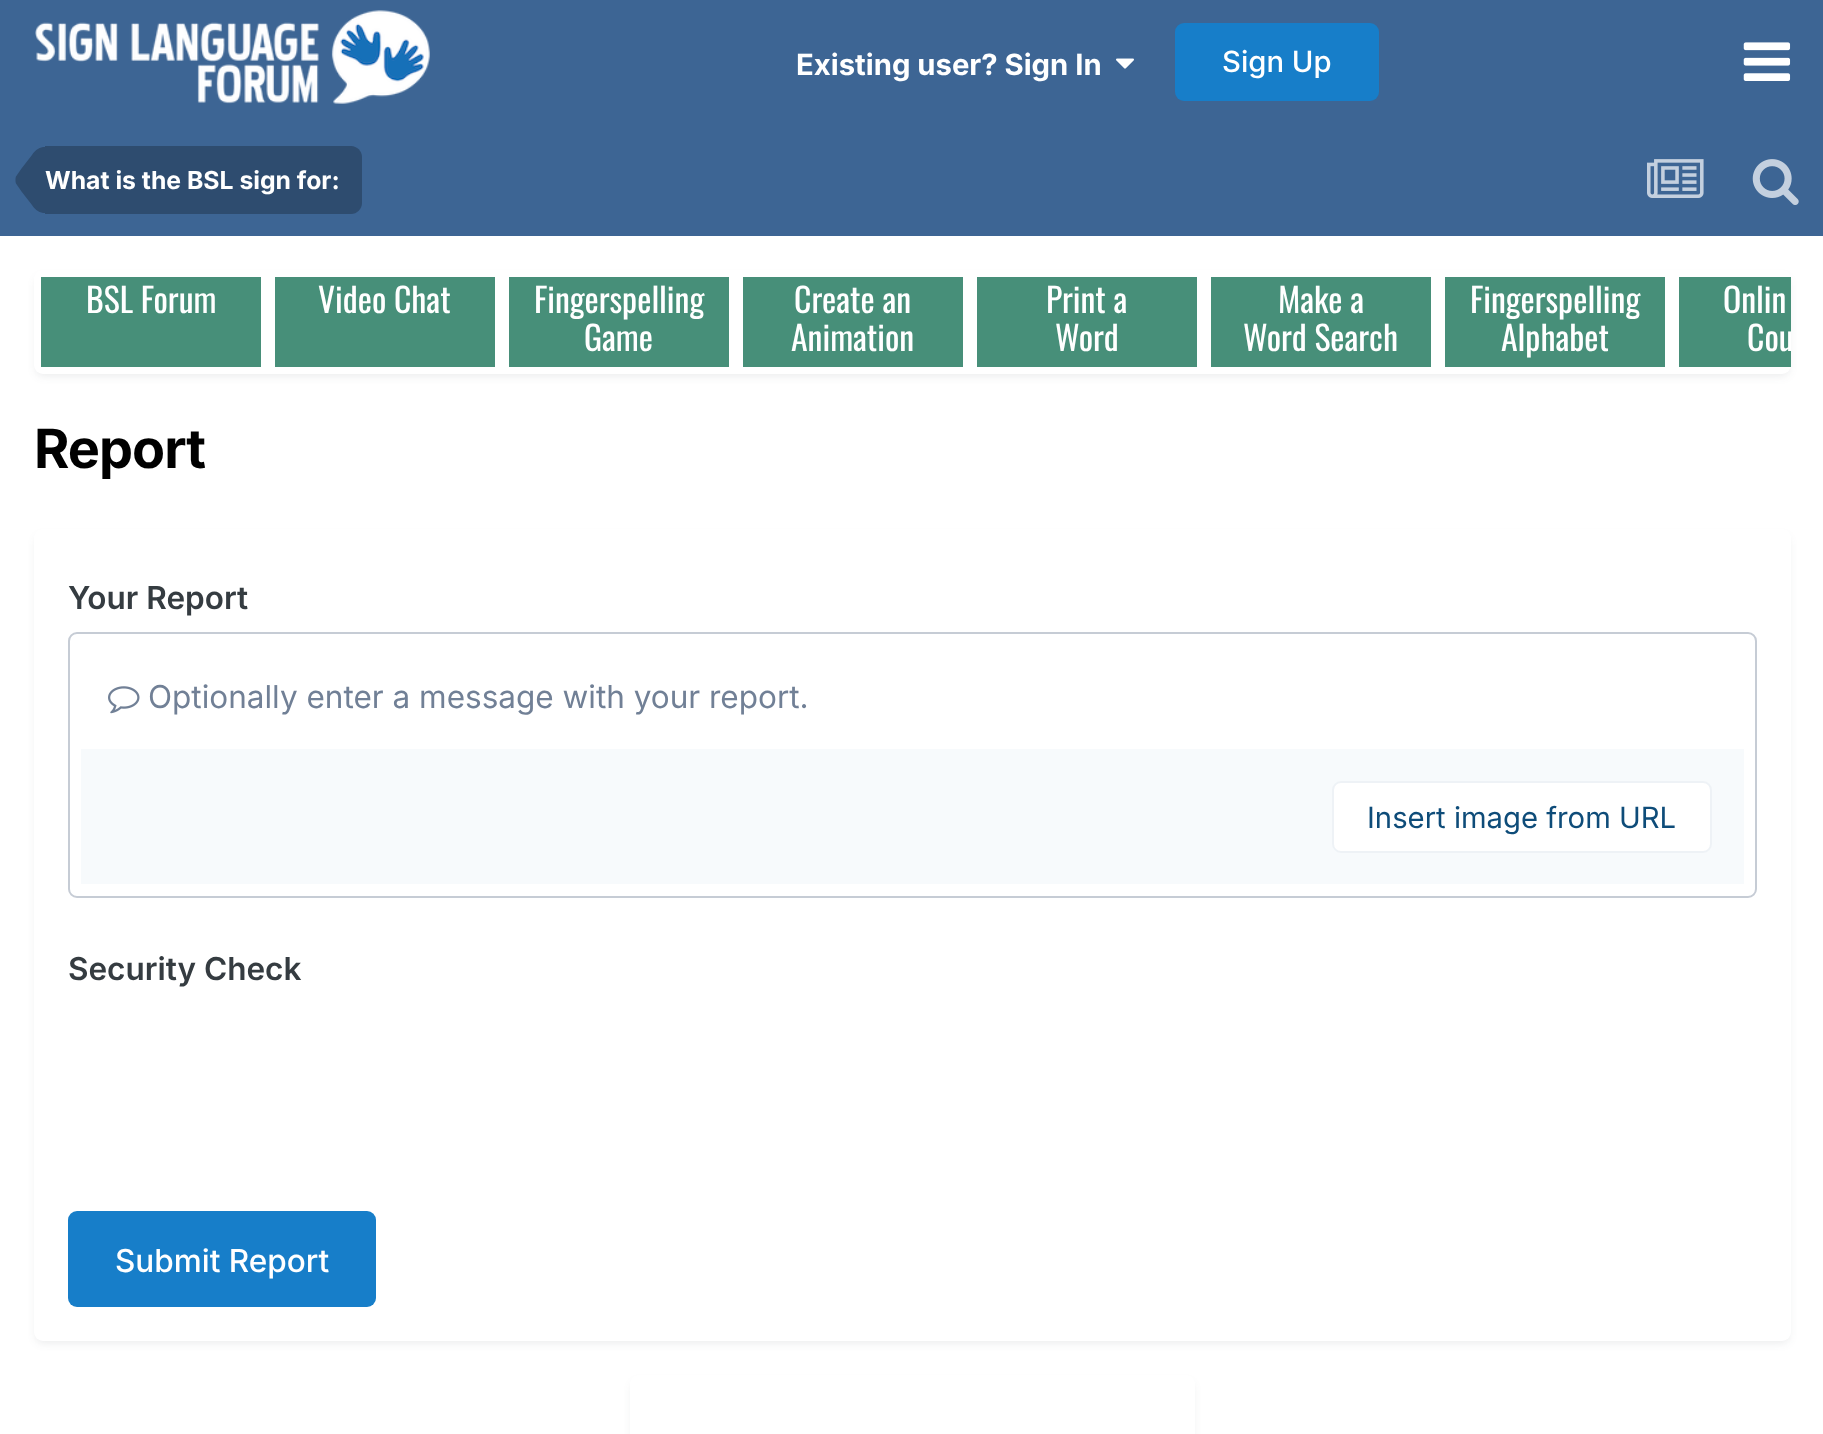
<svg xmlns="http://www.w3.org/2000/svg" width="1823" height="1434" viewBox="0 0 1823 1434">
  <style>
    .t1 { font: bold 29.25px Inter; fill: #fff; }
    .t2 { font: 500 29.25px Inter; fill: #fff; }
    .t3 { font: bold 24.75px Inter; fill: #fff; }
    .t4 { font: 33.75px Oswald; fill: #fff; }
    .t5 { font: bold 54px Inter; letter-spacing: -1px; fill: #000; }
    .t6 { font: 600 31.5px Inter; fill: #353c41; }
    .t7 { font: 31.5px Inter; fill: #718096; }
    .t8 { font: 29.25px Inter; fill: #0e4c79; }
    .t9 { font: 500 31.5px Inter; fill: #fff; }
  </style>
  <defs>
    <clipPath id="clip1"><rect x="34" y="270" width="1757" height="104"/></clipPath>
  </defs>
  <rect width="100%" height="100%" fill="#fff"/>
  <rect x="0" y="0" width="1823" height="236" fill="#3d6594"/>
  <image x="35" y="10" width="395" height="94" href="images/1.png"/>
  <text x="796" y="75" class="t1">Existing user? Sign In</text>
  <image x="1116" y="58" width="18" height="11" href="images/2.png"/>
  <rect x="1175" y="23" width="204" height="78" rx="9" fill="#177ec9"/>
  <text x="1222" y="72" class="t2">Sign Up</text>
  <image x="1743" y="42" width="48" height="39" href="images/3.png"/>
  <path d="M45 146H351C357 146 362 151 362 157V203C362 209 357 214 351 214H45Z" fill="#2e4c6f"/>
  <path d="M45 180V213C40 213 35.5 210.5 32 205L21.5 191.5L16 183.5C15.5 182 15.5 181 15.5 180Z" fill="#2e4c6f"/>
  <path d="M45 180H15.5C15.5 179 15.5 178 16 176.5L21.5 168.5L32 155C35.5 149.5 40 147 45 147Z" fill="#2e4c6f"/>
  <text x="45" y="189" class="t3">What is the BSL sign for:</text>
  <image x="1647" y="159" width="57" height="39" href="images/4.png"/>
  <image x="1752" y="159" width="47" height="46" href="images/5.png"/>
  <rect x="36" y="277" width="1753" height="99" rx="7" fill="#2d37481a" filter="blur(4.5px)"/>
  <rect x="34" y="270" width="1757" height="104" rx="9" fill="#fff"/>
  <rect x="41" y="277" width="220" height="90" fill="#478f79"/>
  <text x="86" y="313" class="t4">BSL Forum</text>
  <rect x="275" y="277" width="220" height="90" fill="#478f79"/>
  <text x="318" y="313" class="t4">Video Chat</text>
  <rect x="509" y="277" width="220" height="90" fill="#478f79"/>
  <text x="534" y="313" class="t4">Fingerspelling</text>
  <text x="584" y="351" class="t4">Game</text>
  <rect x="743" y="277" width="220" height="90" fill="#478f79"/>
  <text x="794" y="313" class="t4">Create an</text>
  <text x="791" y="351" class="t4">Animation</text>
  <rect x="977" y="277" width="220" height="90" fill="#478f79"/>
  <text x="1046" y="313" class="t4">Print a</text>
  <text x="1055" y="351" class="t4">Word</text>
  <rect x="1211" y="277" width="220" height="90" fill="#478f79"/>
  <text x="1278" y="313" class="t4">Make a</text>
  <text x="1243" y="351" class="t4">Word Search</text>
  <rect x="1445" y="277" width="220" height="90" fill="#478f79"/>
  <text x="1470" y="313" class="t4">Fingerspelling</text>
  <text x="1501" y="351" class="t4">Alphabet</text>
  <rect x="1679" y="277" width="112" height="90" fill="#478f79"/>
  <text x="1723" y="313" class="t4">Onlin</text>
  <g clip-path="url(#clip1)">
    <text x="1747" y="351" class="t4">Cou</text>
  </g>
  <text x="34" y="468" class="t5">Report</text>
  <rect x="36" y="536" width="1753" height="807" rx="7" fill="#2d37481a" filter="blur(4.5px)"/>
  <rect x="34" y="529" width="1757" height="812" rx="9" fill="#fff"/>
  <text x="68" y="609" class="t6">Your Report</text>
  <rect x="69" y="633" width="1687" height="264" rx="8" fill="none" stroke="#c6ccd5" stroke-width="2"/>
  <image x="108" y="686" width="32" height="28" href="images/6.png"/>
  <text x="148" y="708" class="t7">Optionally enter a message with your report.</text>
  <rect x="81" y="749" width="1663" height="135" fill="#f7fafc"/>
  <rect x="1332" y="781" width="380" height="72" rx="9" fill="#fff"/>
  <rect x="1333" y="782" width="378" height="70" rx="8" fill="none" stroke="#0e4c7912" stroke-width="2"/>
  <text x="1367" y="828" class="t8">Insert image from URL</text>
  <text x="68" y="980" class="t6">Security Check</text>
  <rect x="68" y="1211" width="308" height="96" rx="9" fill="#177ec9"/>
  <text x="115" y="1272" class="t9">Submit Report</text>
  <rect x="632" y="1382" width="561" height="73" rx="7" fill="#2d37481a" filter="blur(4.5px)"/>
  <rect x="630" y="1375" width="565" height="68" rx="9" fill="#fff"/>
</svg>
